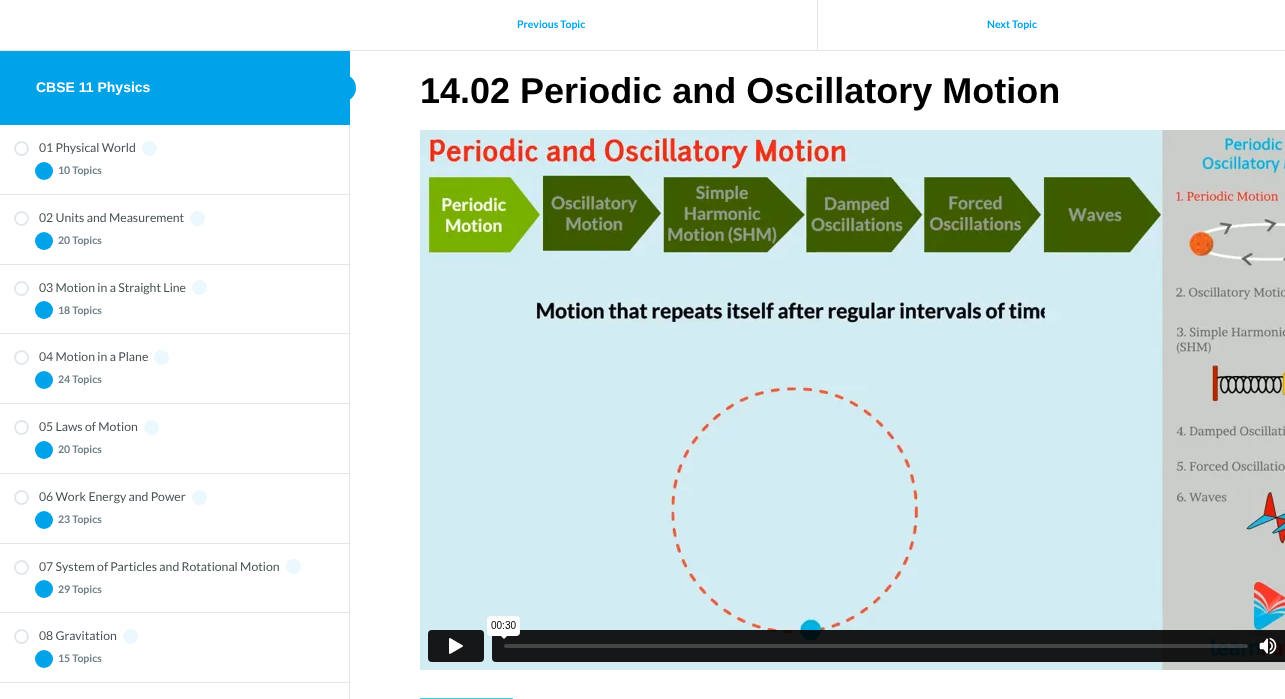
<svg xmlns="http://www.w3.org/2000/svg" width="1285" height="699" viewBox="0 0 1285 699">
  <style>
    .t1 { font: bold 10.5px Lato; fill: #00a2e8; }
    .t2 { font: bold 36px Arimo; fill: #000; }
    .t3 { font: bold 14px Arimo; fill: #fff; }
    .t4 { font: 12.25px Lato; fill: #495255; }
    .t5 { font: bold 10.5px Lato; fill: #728188; }
  </style>
  <rect width="100%" height="100%" fill="#fff"/>
  <rect x="0" y="50" width="1285" height="1" fill="#e2e7ed"/>
  <rect x="817" y="0" width="1" height="50" fill="#e2e7ed"/>
  <text x="517" y="28" class="t1">Previous Topic</text>
  <text x="987" y="28" class="t1">Next Topic</text>
  <text x="420" y="103" class="t2">14.02 Periodic and Oscillatory Motion</text>
  <image x="420" y="130" width="865" height="540" href="images/1.png"/>
  <rect x="420" y="698" width="93" height="1" fill="#4dcadd"/>
  <rect x="349" y="125" width="1" height="574" fill="#e2e7ed"/>
  <rect x="0" y="51" width="350" height="74" fill="#00a2e8"/>
  <text x="36" y="92" class="t3">CBSE 11 Physics</text>
  <ellipse cx="343.5" cy="88" rx="12.5" ry="13.5" fill="#00a2e8"/>
  <rect x="0" y="194" width="349" height="1" fill="#e2e7ed"/>
  <circle cx="21.5" cy="148.5" r="6.5" fill="none" stroke="#e2e7ed" stroke-width="2"/>
  <text x="39" y="152" class="t4">01 Physical World</text>
  <circle cx="149.5" cy="148.5" r="7.5" fill="#ebf8fd"/>
  <circle cx="44" cy="171" r="9" fill="#00a2e8"/>
  <text x="58" y="174" class="t5">10 Topics</text>
  <rect x="0" y="264" width="349" height="1" fill="#e2e7ed"/>
  <circle cx="21.5" cy="218.5" r="6.5" fill="none" stroke="#e2e7ed" stroke-width="2"/>
  <text x="39" y="222" class="t4">02 Units and Measurement</text>
  <circle cx="197.5" cy="218.5" r="7.5" fill="#ebf8fd"/>
  <circle cx="44" cy="241" r="9" fill="#00a2e8"/>
  <text x="58" y="244" class="t5">20 Topics</text>
  <rect x="0" y="333" width="349" height="1" fill="#e2e7ed"/>
  <circle cx="21.5" cy="288.5" r="6.5" fill="none" stroke="#e2e7ed" stroke-width="2"/>
  <text x="39" y="292" class="t4">03 Motion in a Straight Line</text>
  <circle cx="199.5" cy="287.5" r="7.5" fill="#ebf8fd"/>
  <circle cx="44" cy="310" r="9" fill="#00a2e8"/>
  <text x="58" y="314" class="t5">18 Topics</text>
  <rect x="0" y="403" width="349" height="1" fill="#e2e7ed"/>
  <circle cx="21.5" cy="357.5" r="6.5" fill="none" stroke="#e2e7ed" stroke-width="2"/>
  <text x="39" y="361" class="t4">04 Motion in a Plane</text>
  <circle cx="161.5" cy="357.5" r="7.5" fill="#ebf8fd"/>
  <circle cx="44" cy="380" r="9" fill="#00a2e8"/>
  <text x="58" y="383" class="t5">24 Topics</text>
  <rect x="0" y="473" width="349" height="1" fill="#e2e7ed"/>
  <circle cx="21.5" cy="427.5" r="6.5" fill="none" stroke="#e2e7ed" stroke-width="2"/>
  <text x="39" y="431" class="t4">05 Laws of Motion</text>
  <circle cx="151.5" cy="427.5" r="7.5" fill="#ebf8fd"/>
  <circle cx="44" cy="450" r="9" fill="#00a2e8"/>
  <text x="58" y="453" class="t5">20 Topics</text>
  <rect x="0" y="543" width="349" height="1" fill="#e2e7ed"/>
  <circle cx="21.5" cy="497.5" r="6.5" fill="none" stroke="#e2e7ed" stroke-width="2"/>
  <text x="39" y="501" class="t4">06 Work Energy and Power</text>
  <circle cx="199.5" cy="497.5" r="7.5" fill="#ebf8fd"/>
  <circle cx="44" cy="520" r="9" fill="#00a2e8"/>
  <text x="58" y="523" class="t5">23 Topics</text>
  <rect x="0" y="612" width="349" height="1" fill="#e2e7ed"/>
  <circle cx="21.5" cy="567.5" r="6.5" fill="none" stroke="#e2e7ed" stroke-width="2"/>
  <text x="39" y="571" class="t4">07 System of Particles and Rotational Motion</text>
  <circle cx="293.5" cy="566.5" r="7.5" fill="#ebf8fd"/>
  <circle cx="44" cy="589" r="9" fill="#00a2e8"/>
  <text x="58" y="593" class="t5">29 Topics</text>
  <rect x="0" y="682" width="349" height="1" fill="#e2e7ed"/>
  <circle cx="21.5" cy="636.5" r="6.5" fill="none" stroke="#e2e7ed" stroke-width="2"/>
  <text x="39" y="640" class="t4">08 Gravitation</text>
  <circle cx="130.5" cy="636.5" r="7.5" fill="#ebf8fd"/>
  <circle cx="44" cy="659" r="9" fill="#00a2e8"/>
  <text x="58" y="662" class="t5">15 Topics</text>
</svg>
